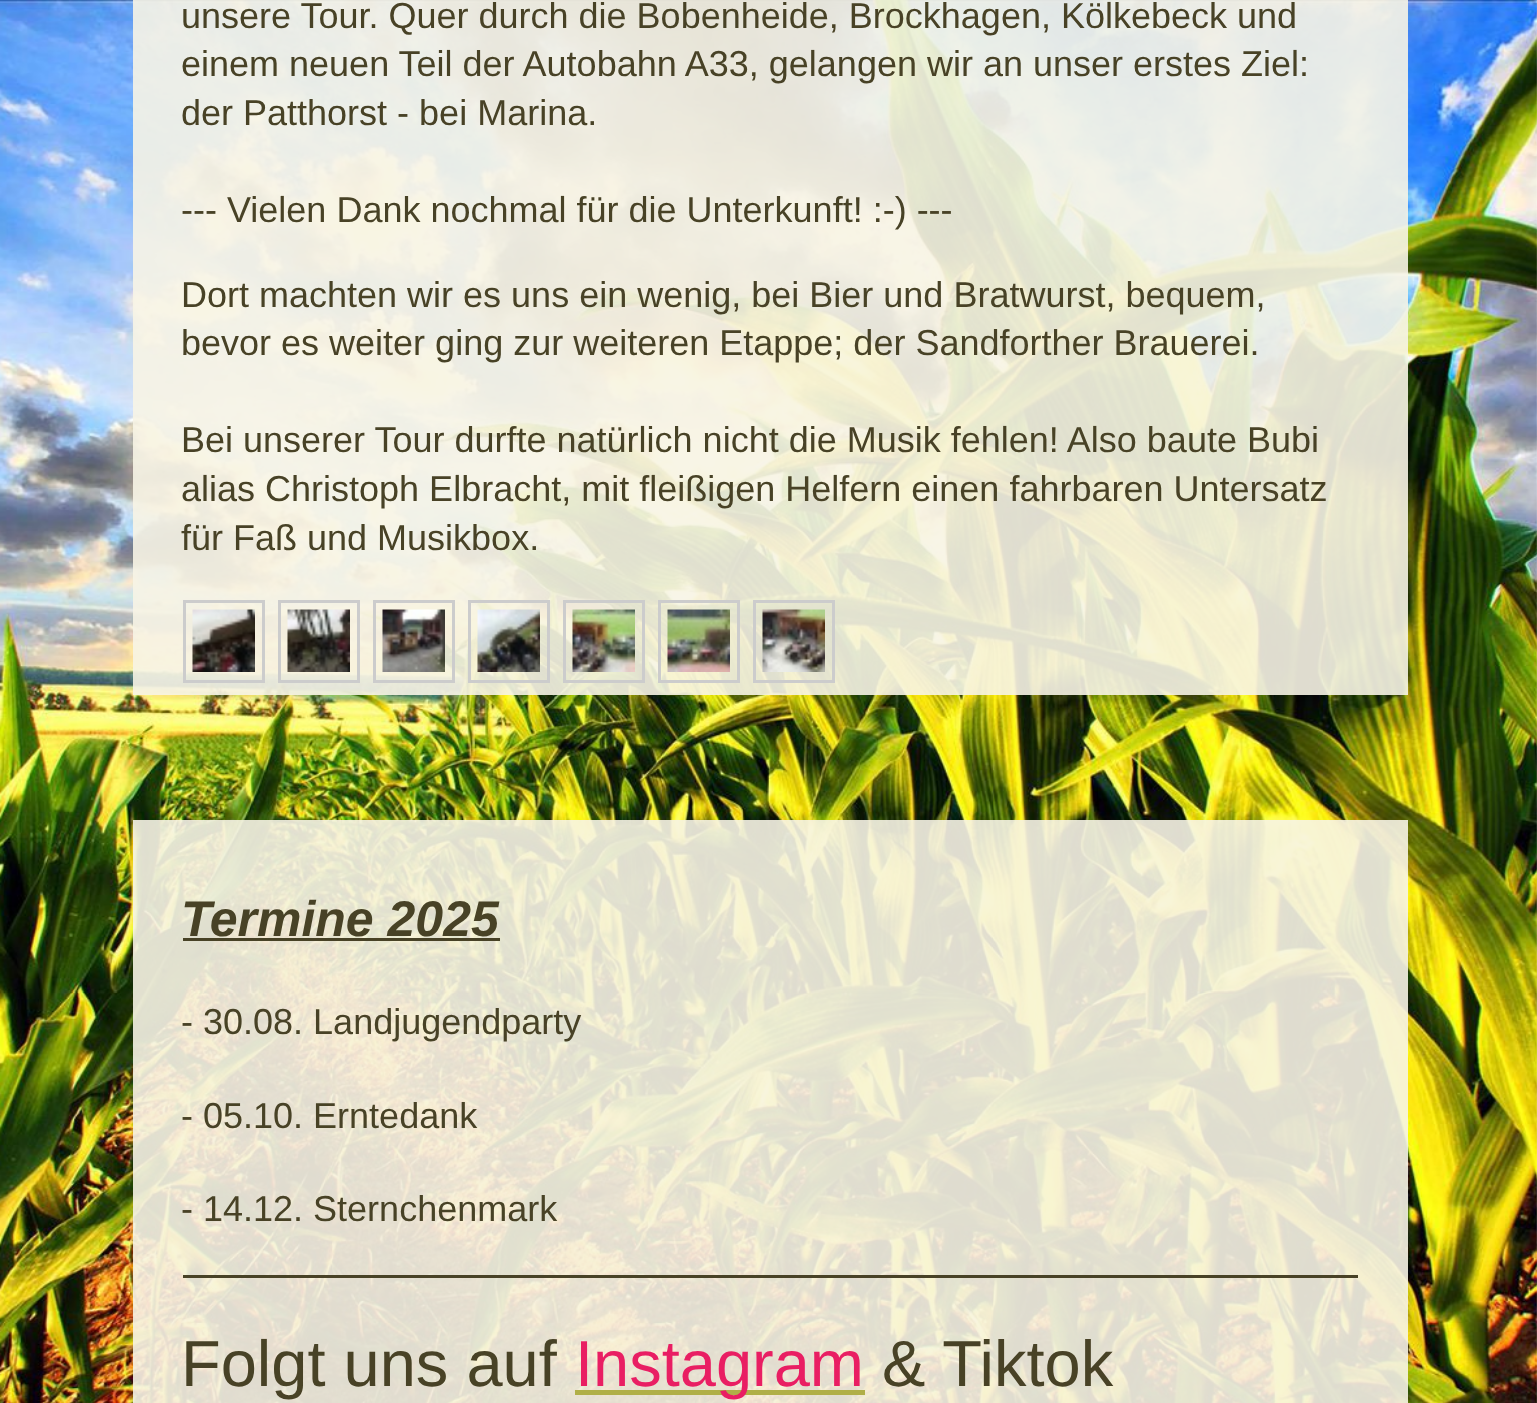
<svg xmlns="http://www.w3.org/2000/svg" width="1537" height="1403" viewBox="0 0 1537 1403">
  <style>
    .t1 { font: 36px Liberation Sans; fill: #484226; }
    .t2 { font: italic bold 50px Liberation Sans; fill: #484226; }
    .t3 { font: 65px Liberation Sans; fill: #484226; }
    .t4 { font: 65px Liberation Sans; fill: #e91e63; }
  </style>
  <rect width="100%" height="100%" fill="#fff"/>
  <image x="0" y="0" width="1537" height="1403" href="images/1.png"/>
  <rect x="133" y="0" width="1275" height="695" fill="#f7f4e6e6"/>
  <text x="181" y="28" class="t1">unsere Tour. Quer durch die Bobenheide, Brockhagen, Kölkebeck und</text>
  <text x="181" y="76" class="t1">einem neuen Teil der Autobahn A33, gelangen wir an unser erstes Ziel:</text>
  <text x="181" y="125" class="t1">der Patthorst - bei Marina.</text>
  <text x="181" y="222" class="t1">--- Vielen Dank nochmal für die Unterkunft! :-) ---</text>
  <text x="181" y="307" class="t1">Dort machten wir es uns ein wenig, bei Bier und Bratwurst, bequem,</text>
  <text x="181" y="355" class="t1">bevor es weiter ging zur weiteren Etappe; der Sandforther Brauerei.</text>
  <text x="181" y="452" class="t1">Bei unserer Tour durfte natürlich nicht die Musik fehlen! Also baute Bubi</text>
  <text x="181" y="501" class="t1">alias Christoph Elbracht, mit fleißigen Helfern einen fahrbaren Untersatz</text>
  <text x="181" y="550" class="t1">für Faß und Musikbox.</text>
  <rect x="184.5" y="601.5" width="79" height="80" fill="none" stroke="#ccc" stroke-width="3"/>
  <image x="192" y="609" width="63" height="63" href="images/2.png"/>
  <rect x="279.5" y="601.5" width="79" height="80" fill="none" stroke="#ccc" stroke-width="3"/>
  <image x="287" y="609" width="63" height="63" href="images/3.png"/>
  <rect x="374.5" y="601.5" width="79" height="80" fill="none" stroke="#ccc" stroke-width="3"/>
  <image x="382" y="609" width="63" height="63" href="images/4.png"/>
  <rect x="469.5" y="601.5" width="79" height="80" fill="none" stroke="#ccc" stroke-width="3"/>
  <image x="477" y="609" width="63" height="63" href="images/5.png"/>
  <rect x="564.5" y="601.5" width="79" height="80" fill="none" stroke="#ccc" stroke-width="3"/>
  <image x="572" y="609" width="63" height="63" href="images/6.png"/>
  <rect x="659.5" y="601.5" width="79" height="80" fill="none" stroke="#ccc" stroke-width="3"/>
  <image x="667" y="609" width="63" height="63" href="images/7.png"/>
  <rect x="754.5" y="601.5" width="79" height="80" fill="none" stroke="#ccc" stroke-width="3"/>
  <image x="762" y="609" width="63" height="63" href="images/8.png"/>
  <rect x="133" y="820" width="1275" height="583" fill="#f7f4e6e6"/>
  <text x="181" y="936" class="t2">Termine 2025</text>
  <rect x="183" y="938" width="317" height="3" fill="#484226"/>
  <text x="181" y="1034" class="t1">- 30.08. Landjugendparty</text>
  <text x="181" y="1128" class="t1">- 05.10. Erntedank</text>
  <text x="181" y="1221" class="t1">- 14.12. Sternchenmark</text>
  <rect x="183" y="1275" width="1175" height="3" fill="#484226"/>
  <text x="181" y="1386" class="t3">Folgt uns auf</text>
  <rect x="575" y="1390" width="290" height="5" fill="#b0af47"/>
  <text x="575" y="1386" class="t4">Instagram</text>
  <text x="882" y="1386" class="t3">&amp; Tiktok</text>
</svg>
